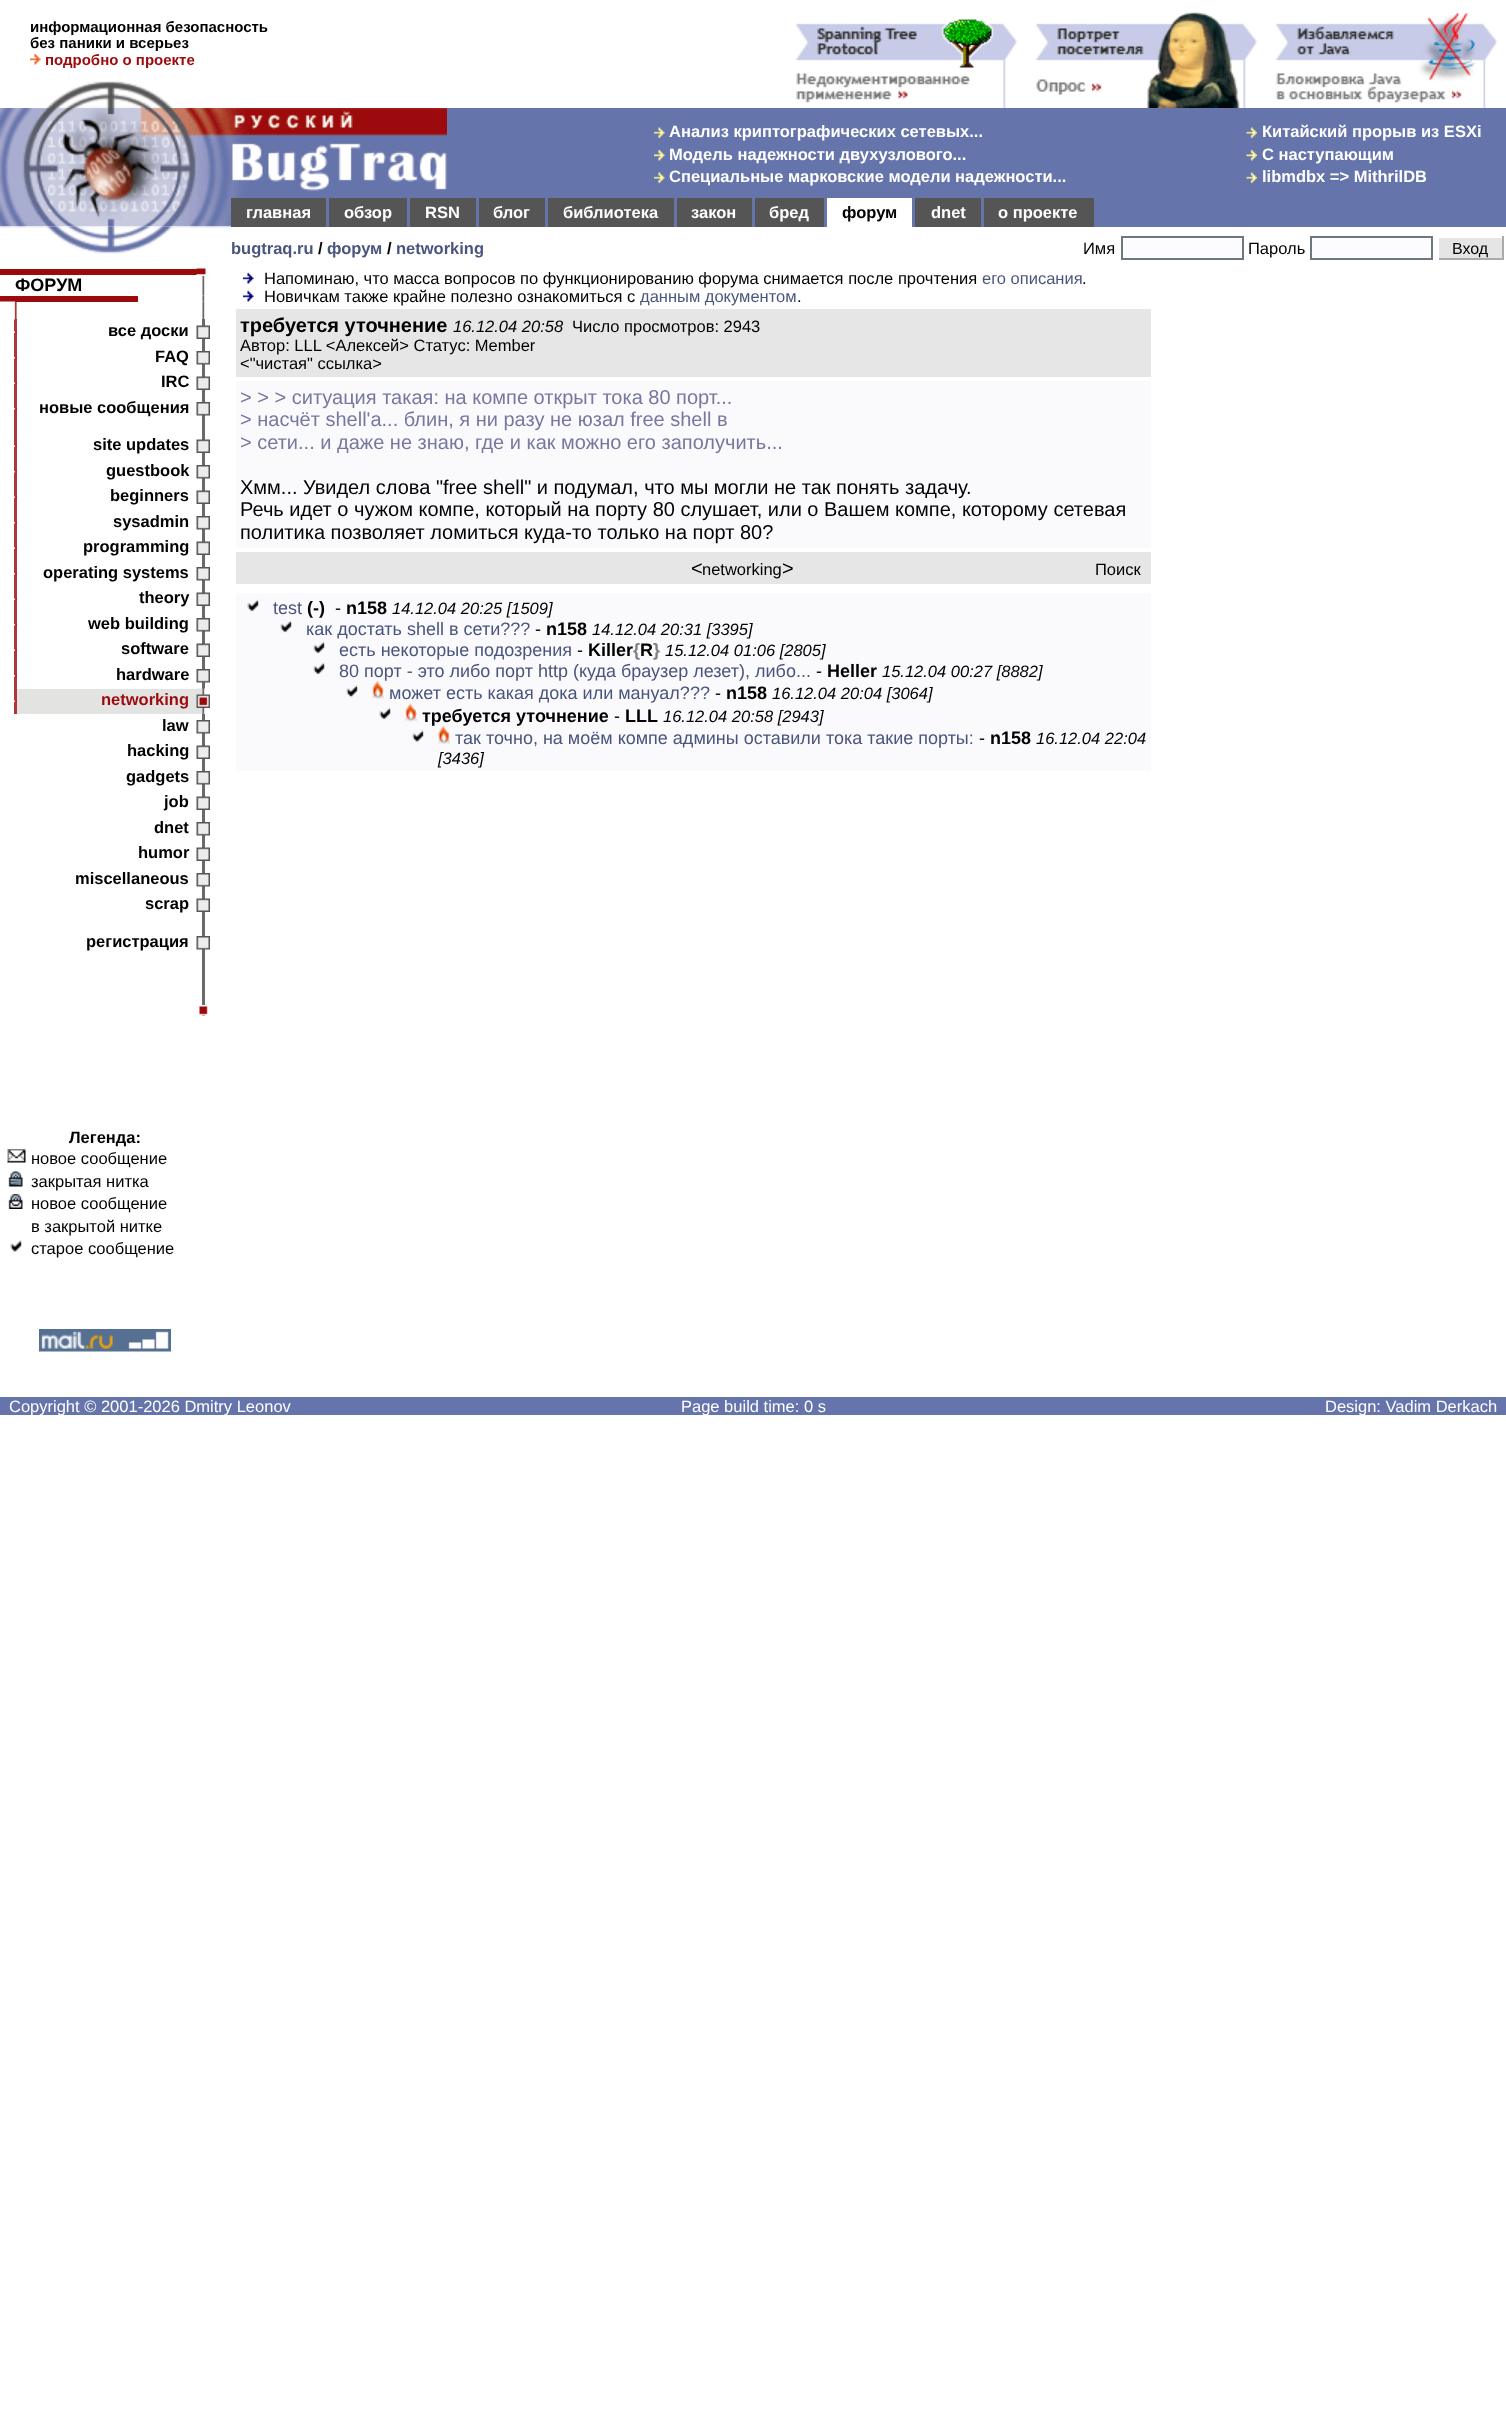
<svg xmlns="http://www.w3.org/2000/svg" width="1506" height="2434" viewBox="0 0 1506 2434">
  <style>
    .t1 { font: bold 15px Liberation Sans; fill: #000; }
    .t2 { font: bold 15px Liberation Sans; fill: #9c0a0e; }
    .t3 { font: bold 16.5px Liberation Sans; fill: #fff; }
    .t4 { font: bold 16.5px Liberation Sans; fill: #000; }
    .t5 { font: bold 16.5px Liberation Sans; fill: #4a557e; }
    .t6 { font: 16.5px Liberation Sans; fill: #000; }
    .t7 { font: 16px Liberation Sans; fill: #000; }
    .t8 { font: bold 18px Liberation Sans; fill: #000; }
    .t9 { font: bold 16.5px Liberation Sans; fill: #9c0a0e; }
    .t10 { font: 16.5px Liberation Sans; fill: #4a557e; }
    .t11 { font: bold 20px Liberation Sans; fill: #000; }
    .t12 { font: italic 16.5px Liberation Sans; fill: #000; }
    .t13 { font: 20px Liberation Sans; fill: #77779f; }
    .t14 { font: 20px Liberation Sans; fill: #000; }
    .t15 { font: 18px Liberation Sans; fill: #4a557e; }
    .t16 { font: 18px Liberation Sans; fill: #000; }
    .t17 { font: bold 18px Liberation Sans; fill: #808080; }
    .t18 { font: 16.5px Liberation Sans; fill: #fff; }
  </style>
  <rect width="100%" height="100%" fill="#fff"/>
  <text x="30" y="32" class="t1">информационная безопасность</text>
  <text x="30" y="48" class="t1">без паники и всерьез</text>
  <image x="30" y="54" width="11" height="11" href="images/1.png"/>
  <text x="45" y="65" class="t2">подробно о проекте</text>
  <image x="796" y="19" width="222" height="89" href="images/2.png"/>
  <image x="1036" y="11" width="222" height="97" href="images/3.png"/>
  <image x="1276" y="13" width="222" height="95" href="images/4.png"/>
  <image x="46" y="81" width="127" height="27" href="images/5.png"/>
  <rect x="447" y="108" width="1059" height="90" fill="#6574ab"/>
  <image x="0" y="108" width="231" height="119" href="images/6.png"/>
  <image x="0" y="226" width="231" height="28" href="images/7.png"/>
  <image x="231" y="108" width="216" height="90" href="images/8.png"/>
  <image x="654" y="127" width="11" height="11" href="images/9.png"/>
  <text x="669" y="137" class="t3">Анализ криптографических сетевых...</text>
  <image x="654" y="150" width="11" height="11" href="images/10.png"/>
  <text x="669" y="160" class="t3">Модель надежности двухузлового...</text>
  <image x="654" y="172" width="11" height="11" href="images/9.png"/>
  <text x="669" y="182" class="t3">Специальные марковские модели надежности...</text>
  <image x="1246" y="127" width="11" height="11" href="images/11.png"/>
  <text x="1262" y="137" class="t3">Китайский прорыв из ESXi</text>
  <image x="1246" y="150" width="11" height="11" href="images/12.png"/>
  <text x="1262" y="160" class="t3">С наступающим</text>
  <image x="1246" y="172" width="11" height="11" href="images/11.png"/>
  <text x="1262" y="182" class="t3">libmdbx =&gt; MithrilDB</text>
  <rect x="326" y="198" width="1180" height="29" fill="#6574ab"/>
  <rect x="231" y="198" width="95" height="29" fill="#555"/>
  <text x="246" y="218" class="t3">главная</text>
  <rect x="329" y="198" width="78" height="29" fill="#555"/>
  <text x="344" y="218" class="t3">обзор</text>
  <rect x="410" y="198" width="66" height="29" fill="#555"/>
  <text x="425" y="218" class="t3">RSN</text>
  <rect x="479" y="198" width="66" height="29" fill="#555"/>
  <text x="493" y="218" class="t3">блог</text>
  <rect x="548" y="198" width="126" height="29" fill="#555"/>
  <text x="563" y="218" class="t3">библиотека</text>
  <rect x="677" y="198" width="75" height="29" fill="#555"/>
  <text x="691" y="218" class="t3">закон</text>
  <rect x="755" y="198" width="69" height="29" fill="#555"/>
  <text x="769" y="218" class="t3">бред</text>
  <rect x="827" y="198" width="85" height="29" fill="#fff"/>
  <text x="842" y="218" class="t4">форум</text>
  <rect x="915" y="198" width="66" height="29" fill="#555"/>
  <text x="931" y="218" class="t3">dnet</text>
  <rect x="984" y="198" width="110" height="29" fill="#555"/>
  <text x="998" y="218" class="t3">о проекте</text>
  <text x="231" y="254" class="t5">bugtraq.ru</text>
  <text x="318" y="254" class="t4">/</text>
  <text x="327" y="254" class="t5">форум</text>
  <text x="387" y="254" class="t4">/</text>
  <text x="396" y="254" class="t5">networking</text>
  <text x="1083" y="254" class="t6">Имя</text>
  <rect x="1122" y="237" width="121" height="22" fill="#fcfcff" stroke="#6e767e" stroke-width="2"/>
  <text x="1248" y="254" class="t6">Пароль</text>
  <rect x="1311" y="237" width="121" height="22" fill="#fcfcff" stroke="#6e767e" stroke-width="2"/>
  <rect x="1439" y="238" width="63" height="20" fill="#e5e5e5"/>
  <rect x="1502" y="236" width="2" height="24" fill="#aaa"/>
  <rect x="1437" y="258" width="66" height="2" fill="#aaa"/>
  <rect x="1437" y="258" width="2" height="2" fill="#fff"/>
  <text x="1452" y="254" class="t7">Вход</text>
  <rect x="0" y="269" width="197" height="6" fill="#9c0a0e"/>
  <image x="196" y="274" width="14" height="22" href="images/14.png"/>
  <image x="196" y="268" width="14" height="7" href="images/13.png"/>
  <text x="15" y="291" class="t8">ФОРУМ</text>
  <image x="196" y="274" width="14" height="2" href="images/15.png"/>
  <rect x="0" y="296" width="138" height="6" fill="#9c0a0e"/>
  <image x="196" y="295" width="9" height="7" href="images/16.png"/>
  <rect x="14" y="319" width="3" height="103" fill="#ae373b"/>
  <image x="0" y="301" width="17" height="19" href="images/17.png"/>
  <image x="196" y="301" width="9" height="19" href="images/18.png"/>
  <image x="14" y="331" width="3" height="2" href="images/19.png"/>
  <text x="108" y="336" class="t4">все доски</text>
  <rect x="202" y="319" width="3" height="370" fill="#6a6a6a"/>
  <image x="196" y="325" width="14" height="14" href="images/20.png"/>
  <image x="14" y="357" width="3" height="2" href="images/21.png"/>
  <text x="155" y="362" class="t4">FAQ</text>
  <image x="196" y="351" width="14" height="14" href="images/22.png"/>
  <image x="14" y="382" width="3" height="2" href="images/19.png"/>
  <text x="161" y="387" class="t4">IRC</text>
  <image x="196" y="376" width="14" height="14" href="images/20.png"/>
  <image x="14" y="408" width="3" height="2" href="images/21.png"/>
  <text x="39" y="413" class="t4">новые сообщения</text>
  <image x="196" y="402" width="14" height="14" href="images/22.png"/>
  <rect x="14" y="421" width="3" height="293" fill="#ae373b"/>
  <image x="14" y="445" width="3" height="2" href="images/19.png"/>
  <text x="93" y="450" class="t4">site updates</text>
  <image x="196" y="439" width="14" height="14" href="images/20.png"/>
  <image x="14" y="471" width="3" height="2" href="images/21.png"/>
  <text x="106" y="476" class="t4">guestbook</text>
  <image x="196" y="465" width="14" height="14" href="images/22.png"/>
  <image x="14" y="496" width="3" height="2" href="images/19.png"/>
  <text x="110" y="501" class="t4">beginners</text>
  <image x="196" y="490" width="14" height="14" href="images/20.png"/>
  <image x="14" y="522" width="3" height="2" href="images/21.png"/>
  <text x="113" y="527" class="t4">sysadmin</text>
  <image x="196" y="516" width="14" height="14" href="images/22.png"/>
  <image x="14" y="547" width="3" height="2" href="images/19.png"/>
  <text x="83" y="552" class="t4">programming</text>
  <image x="196" y="541" width="14" height="14" href="images/20.png"/>
  <image x="14" y="573" width="3" height="2" href="images/21.png"/>
  <text x="43" y="578" class="t4">operating systems</text>
  <image x="196" y="567" width="14" height="14" href="images/22.png"/>
  <image x="14" y="598" width="3" height="2" href="images/19.png"/>
  <text x="139" y="603" class="t4">theory</text>
  <image x="196" y="592" width="14" height="14" href="images/20.png"/>
  <image x="14" y="624" width="3" height="2" href="images/21.png"/>
  <text x="88" y="629" class="t4">web building</text>
  <image x="196" y="618" width="14" height="14" href="images/22.png"/>
  <image x="14" y="649" width="3" height="2" href="images/19.png"/>
  <text x="121" y="654" class="t4">software</text>
  <image x="196" y="643" width="14" height="14" href="images/20.png"/>
  <image x="14" y="675" width="3" height="2" href="images/21.png"/>
  <text x="116" y="680" class="t4">hardware</text>
  <image x="196" y="669" width="14" height="14" href="images/22.png"/>
  <image x="14" y="700" width="3" height="2" href="images/19.png"/>
  <rect x="17" y="689" width="180" height="25" fill="#e3e3e1"/>
  <text x="101" y="705" class="t9">networking</text>
  <image x="196" y="688" width="9" height="26" href="images/23.png"/>
  <image x="196" y="694" width="14" height="14" href="images/24.png"/>
  <text x="162" y="731" class="t4">law</text>
  <rect x="202" y="714" width="3" height="302" fill="#6a6a6a"/>
  <image x="196" y="720" width="14" height="14" href="images/22.png"/>
  <text x="127" y="756" class="t4">hacking</text>
  <image x="196" y="745" width="14" height="14" href="images/20.png"/>
  <text x="126" y="782" class="t4">gadgets</text>
  <image x="196" y="771" width="14" height="14" href="images/22.png"/>
  <text x="164" y="807" class="t4">job</text>
  <image x="196" y="796" width="14" height="14" href="images/20.png"/>
  <text x="154" y="833" class="t4">dnet</text>
  <image x="196" y="822" width="14" height="14" href="images/22.png"/>
  <text x="138" y="858" class="t4">humor</text>
  <image x="196" y="847" width="14" height="14" href="images/20.png"/>
  <text x="75" y="884" class="t4">miscellaneous</text>
  <image x="196" y="873" width="14" height="14" href="images/22.png"/>
  <text x="145" y="909" class="t4">scrap</text>
  <image x="196" y="898" width="14" height="14" href="images/20.png"/>
  <text x="86" y="947" class="t4">регистрация</text>
  <image x="196" y="936" width="14" height="14" href="images/22.png"/>
  <image x="199" y="1005" width="9" height="11" href="images/25.png"/>
  <text x="69" y="1143" class="t4">Легенда:</text>
  <image x="7" y="1149" width="19" height="14" href="images/26.png"/>
  <text x="31" y="1164" class="t6">новое сообщение</text>
  <image x="8" y="1171" width="15" height="16" href="images/27.png"/>
  <text x="31" y="1187" class="t6">закрытая нитка</text>
  <image x="8" y="1194" width="15" height="15" href="images/28.png"/>
  <text x="31" y="1209" class="t6">новое сообщение</text>
  <text x="31" y="1232" class="t6">в закрытой нитке</text>
  <image x="10" y="1240" width="12" height="13" href="images/29.png"/>
  <text x="31" y="1254" class="t6">старое сообщение</text>
  <image x="243" y="272" width="11" height="12" href="images/30.png"/>
  <text x="264" y="284" class="t6">Напоминаю, что масса вопросов по функционированию форума снимается после прочтения</text>
  <text x="982" y="284" class="t10">его описания</text>
  <text x="1082" y="284" class="t6">.</text>
  <image x="243" y="290" width="11" height="12" href="images/30.png"/>
  <text x="264" y="302" class="t6">Новичкам также крайне полезно ознакомиться с</text>
  <text x="640" y="302" class="t10">данным документом</text>
  <text x="797" y="302" class="t6">.</text>
  <rect x="236" y="309" width="915" height="68" fill="#e6e6e6"/>
  <text x="240" y="332" class="t11">требуется уточнение</text>
  <text x="453" y="332" class="t12">16.12.04 20:58</text>
  <text x="572" y="332" class="t6">Число просмотров: 2943</text>
  <text x="240" y="351" class="t6">Автор: LLL &lt;Алексей&gt; Статус: Member</text>
  <text x="240" y="369" class="t6">&lt;"чистая" ссылка&gt;</text>
  <rect x="236" y="381" width="915" height="167" fill="#fafafc"/>
  <text x="240" y="404" class="t13">&gt; &gt; &gt; ситуация такая: на компе открыт тока 80 порт...</text>
  <text x="240" y="426" class="t13">&gt; насчёт shell'а... блин, я ни разу не юзал free shell в</text>
  <text x="240" y="449" class="t13">&gt; сети... и даже не знаю, где и как можно его заполучить...</text>
  <text x="240" y="494" class="t14">Хмм... Увидел слова "free shell" и подумал, что мы могли не так понять задачу.</text>
  <text x="240" y="516" class="t14">Речь идет о чужом компе, который на порту 80 слушает, или о Вашем компе, которому сетевая</text>
  <text x="240" y="539" class="t14">политика позволяет ломиться куда-то только на порт 80?</text>
  <rect x="236" y="552" width="915" height="32" fill="#e6e6e6"/>
  <text x="691" y="575" class="t14">&lt;</text>
  <text x="702" y="575" class="t6">networking</text>
  <text x="782" y="575" class="t14">&gt;</text>
  <text x="1095" y="575" class="t6">Поиск</text>
  <rect x="236" y="593" width="915" height="178" fill="#fafafc"/>
  <image x="247" y="599" width="12" height="13" href="images/31.png"/>
  <text x="273" y="614" class="t15">test</text>
  <text x="307" y="614" class="t8">(-)</text>
  <text x="335" y="614" class="t16">-</text>
  <text x="346" y="614" class="t8">n158</text>
  <text x="392" y="614" class="t12">14.12.04 20:25 [1509]</text>
  <image x="280" y="620" width="12" height="13" href="images/32.png"/>
  <text x="306" y="635" class="t15">как достать shell в сети???</text>
  <text x="535" y="635" class="t16">-</text>
  <text x="546" y="635" class="t8">n158</text>
  <text x="592" y="635" class="t12">14.12.04 20:31 [3395]</text>
  <image x="313" y="641" width="12" height="13" href="images/32.png"/>
  <text x="339" y="656" class="t15">есть некоторые подозрения</text>
  <text x="577" y="656" class="t16">-</text>
  <text x="588" y="656" class="t8">Killer</text>
  <text x="633" y="656" class="t17">{</text>
  <text x="640" y="656" class="t8">R</text>
  <text x="653" y="656" class="t17">}</text>
  <text x="665" y="656" class="t12">15.12.04 01:06 [2805]</text>
  <image x="313" y="662" width="12" height="13" href="images/32.png"/>
  <text x="339" y="677" class="t15">80 порт - это либо порт http (куда браузер лезет), либо...</text>
  <text x="816" y="677" class="t16">-</text>
  <text x="827" y="677" class="t8">Heller</text>
  <text x="882" y="677" class="t12">15.12.04 00:27 [8882]</text>
  <image x="346" y="685" width="12" height="13" href="images/33.png"/>
  <image x="372" y="681" width="12" height="18" href="images/34.png"/>
  <text x="389" y="699" class="t15">может есть какая дока или мануал???</text>
  <text x="715" y="699" class="t16">-</text>
  <text x="726" y="699" class="t8">n158</text>
  <text x="772" y="699" class="t12">16.12.04 20:04 [3064]</text>
  <image x="379" y="707" width="12" height="13" href="images/32.png"/>
  <image x="405" y="703" width="12" height="19" href="images/35.png"/>
  <text x="422" y="722" class="t8">требуется уточнение</text>
  <text x="614" y="722" class="t16">-</text>
  <text x="625" y="722" class="t8">LLL</text>
  <text x="663" y="722" class="t12">16.12.04 20:58 [2943]</text>
  <image x="412" y="730" width="12" height="13" href="images/33.png"/>
  <image x="438" y="726" width="12" height="18" href="images/34.png"/>
  <text x="455" y="744" class="t15">так точно, на моём компе админы оставили тока такие порты:</text>
  <text x="979" y="744" class="t16">-</text>
  <text x="990" y="744" class="t8">n158</text>
  <text x="1036" y="744" class="t12">16.12.04 22:04</text>
  <text x="438" y="764" class="t12">[3436]</text>
  <image x="39" y="1329" width="132" height="23" href="images/36.png"/>
  <rect x="0" y="1397" width="1506" height="18" fill="#6574ab"/>
  <text x="9" y="1412" class="t18">Copyright © 2001-2026 Dmitry Leonov</text>
  <text x="681" y="1412" class="t18">Page build time: 0 s</text>
  <text x="1325" y="1412" class="t18">Design: Vadim Derkach</text>
</svg>
